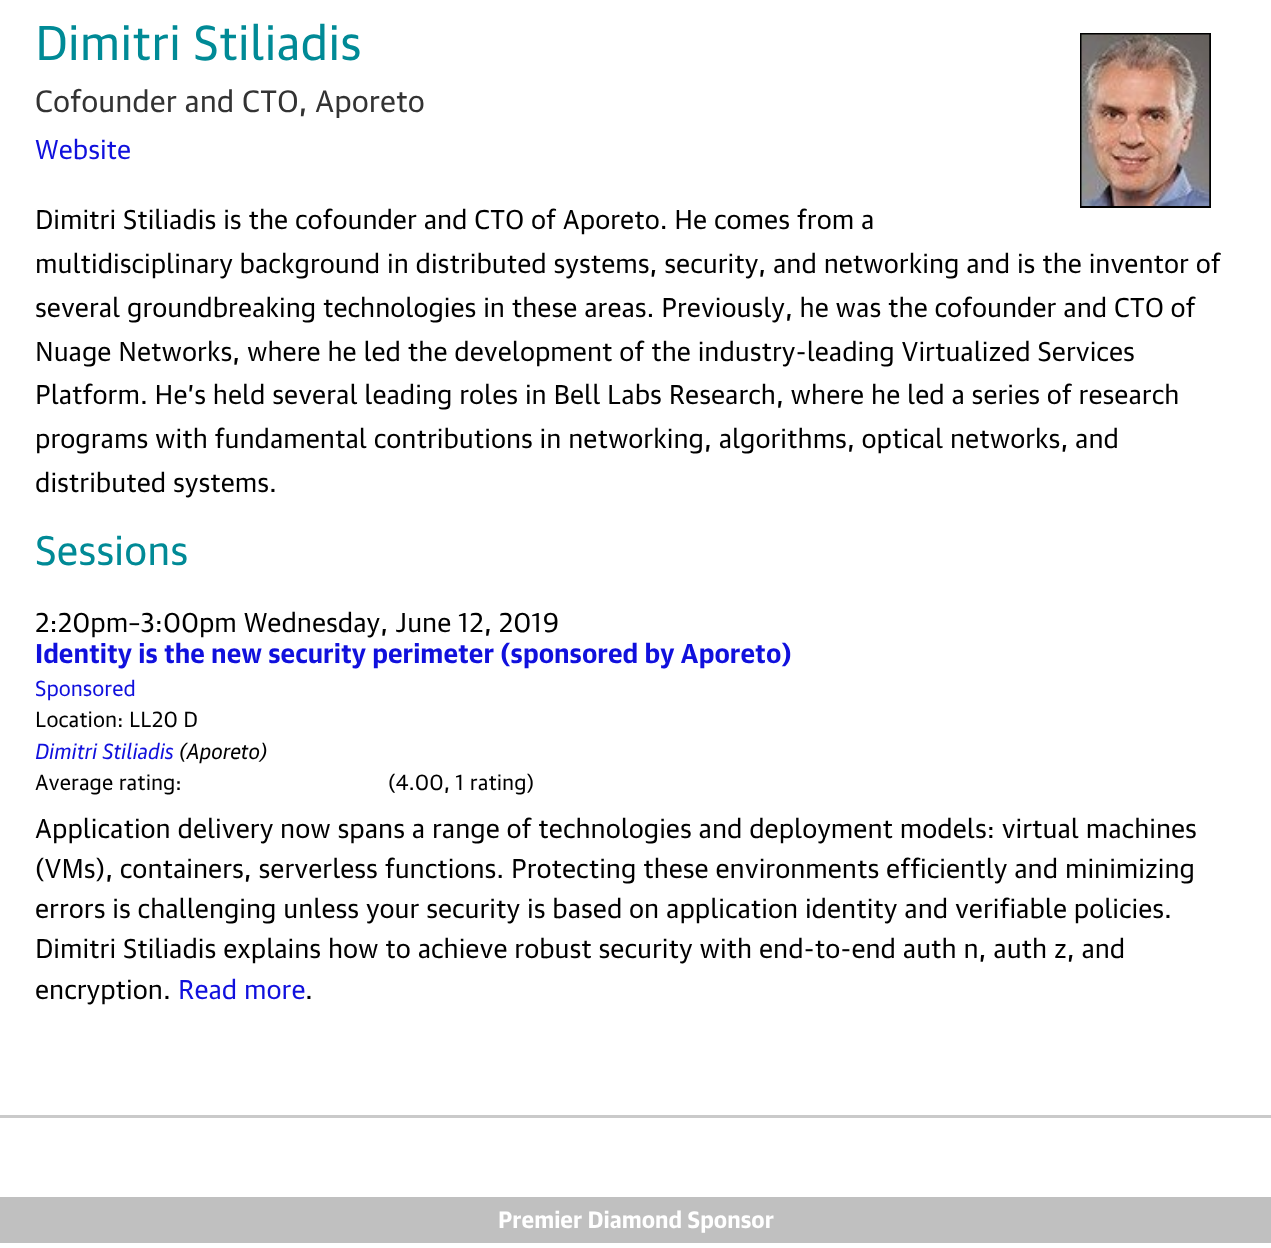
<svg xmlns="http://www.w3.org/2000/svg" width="1271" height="1248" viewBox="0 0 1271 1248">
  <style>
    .t1 { font: 47.25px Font; fill: #008a96; }
    .t2 { font: 29.75px Font; fill: #333; }
    .t3 { font: 26.25px Font; fill: #1010dd; }
    .t4 { font: 26.25px Font; fill: #000; }
    .t5 { font: 40px Font; fill: #008a96; }
    .t6 { font: bold 26.25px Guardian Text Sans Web; fill: #1010dd; }
    .t7 { font: 21px Font; fill: #1010dd; }
    .t8 { font: 21px Font; fill: #000; }
    .t9 { font: italic 21px Guardian TextSans Web; fill: #1010dd; }
    .t10 { font: italic 21px Guardian TextSans Web; fill: #000; }
    .t11 { font: bold 22.75px Guardian Text Sans Web; fill: #fff; }
  </style>
  <rect width="100%" height="100%" fill="#fff"/>
  <text x="35" y="60" class="t1">Dimitri Stiliadis</text>
  <text x="35" y="112" class="t2">Cofounder and CTO, Aporeto</text>
  <text x="35" y="159" class="t3">Website</text>
  <text x="35" y="229" class="t4">Dimitri Stiliadis is the cofounder and CTO of Aporeto. He comes from a</text>
  <text x="35" y="273" class="t4">multidisciplinary background in distributed systems, security, and networking and is the inventor of</text>
  <text x="35" y="317" class="t4">several groundbreaking technologies in these areas. Previously, he was the cofounder and CTO of</text>
  <text x="35" y="361" class="t4">Nuage Networks, where he led the development of the industry-leading Virtualized Services</text>
  <text x="35" y="404" class="t4">Platform. He’s held several leading roles in Bell Labs Research, where he led a series of research</text>
  <text x="35" y="448" class="t4">programs with fundamental contributions in networking, algorithms, optical networks, and</text>
  <text x="35" y="492" class="t4">distributed systems.</text>
  <text x="35" y="565" class="t5">Sessions</text>
  <text x="35" y="632" class="t4">2:20pm–3:00pm Wednesday, June 12, 2019</text>
  <text x="35" y="663" class="t6">Identity is the new security perimeter (sponsored by Aporeto)</text>
  <text x="35" y="696" class="t7">Sponsored</text>
  <text x="35" y="727" class="t8">Location: LL20 D</text>
  <text x="35" y="759" class="t9">Dimitri Stiliadis</text>
  <text x="179" y="759" class="t10">(Aporeto)</text>
  <text x="35" y="790" class="t8">Average rating:</text>
  <text x="388" y="790" class="t8">(4.00, 1 rating)</text>
  <text x="35" y="838" class="t4">Application delivery now spans a range of technologies and deployment models: virtual machines</text>
  <text x="35" y="878" class="t4">(VMs), containers, serverless functions. Protecting these environments efficiently and minimizing</text>
  <text x="35" y="918" class="t4">errors is challenging unless your security is based on application identity and verifiable policies.</text>
  <text x="35" y="958" class="t4">Dimitri Stiliadis explains how to achieve robust security with end-to-end auth n, auth z, and</text>
  <text x="35" y="999" class="t4">encryption.</text>
  <text x="178" y="999" class="t3">Read more</text>
  <text x="305" y="999" class="t4">.</text>
  <rect x="1081" y="34" width="129" height="173" fill="none" stroke="#000" stroke-width="2"/>
  <image x="1081" y="34" width="129" height="172" href="images/1.png"/>
  <rect x="0" y="1115" width="1271" height="3" fill="#cacaca"/>
  <rect x="0" y="1197" width="1271" height="46" fill="#c0c0c0"/>
  <text x="498" y="1228" class="t11">Premier Diamond Sponsor</text>
</svg>
